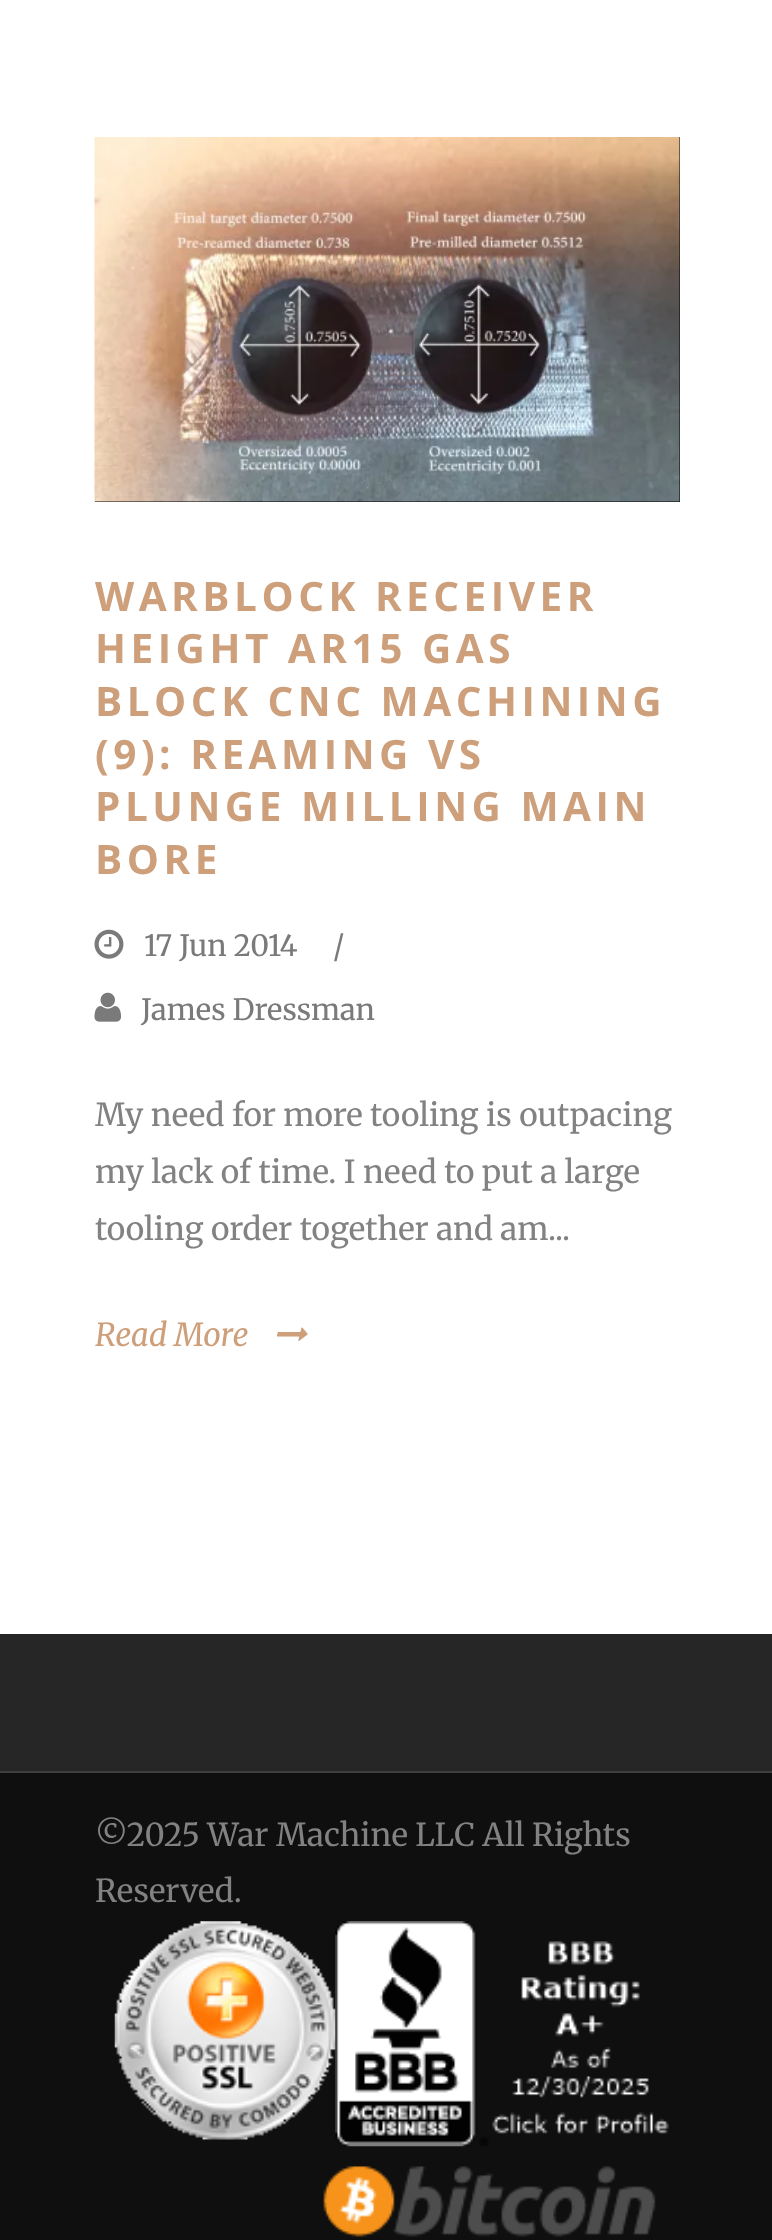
<svg xmlns="http://www.w3.org/2000/svg" width="772" height="2240" viewBox="0 0 772 2240">
  <style>
    .t1 { font: bold 40.5px Open Sans; letter-spacing: 4.5px; fill: #cd9f7a; }
    .t2 { font: 29.25px Merriweather; fill: #7a7a7a; }
    .t3 { font: 31.5px Merriweather; fill: #828282; }
    .t4 { font: italic 31.5px Merriweather; fill: #cd9f7a; }
  </style>
  <rect width="100%" height="100%" fill="#fff"/>
  <rect x="95" y="137" width="585" height="365" fill="#000"/>
  <image x="94" y="137" width="586" height="365" href="images/1.png"/>
  <text x="95" y="611" class="t1">WARBLOCK RECEIVER</text>
  <text x="95" y="663" class="t1">HEIGHT AR15 GAS</text>
  <text x="95" y="716" class="t1">BLOCK CNC MACHINING</text>
  <text x="95" y="769" class="t1">(9): REAMING VS</text>
  <text x="95" y="821" class="t1">PLUNGE MILLING MAIN</text>
  <text x="95" y="874" class="t1">BORE</text>
  <image x="94" y="929" width="30" height="30" href="images/2.png"/>
  <text x="144" y="956" class="t2">17 Jun 2014</text>
  <text x="333" y="956" class="t2">/</text>
  <image x="94" y="992" width="27" height="30" href="images/3.png"/>
  <text x="141" y="1020" class="t2">James Dressman</text>
  <text x="95" y="1126" class="t3">My need for more tooling is outpacing</text>
  <text x="95" y="1183" class="t3">my lack of time. I need to put a large</text>
  <text x="95" y="1240" class="t3">tooling order together and am...</text>
  <text x="95" y="1346" class="t4">Read More</text>
  <image x="276" y="1327" width="32" height="14" href="images/4.png"/>
  <rect x="0" y="1634" width="772" height="137" fill="#262626"/>
  <rect x="0" y="1773" width="772" height="467" fill="#0f0f0f"/>
  <rect x="0" y="1771" width="772" height="2" fill="#3f3f3f"/>
  <text x="95" y="1846" class="t3">©2025 War Machine LLC All Rights</text>
  <text x="95" y="1902" class="t3">Reserved.</text>
  <image x="335" y="1921" width="334" height="226" href="images/6.png"/>
  <image x="114" y="1921" width="222" height="219" href="images/5.png"/>
  <image x="323" y="2166" width="333" height="71" href="images/7.png"/>
</svg>
